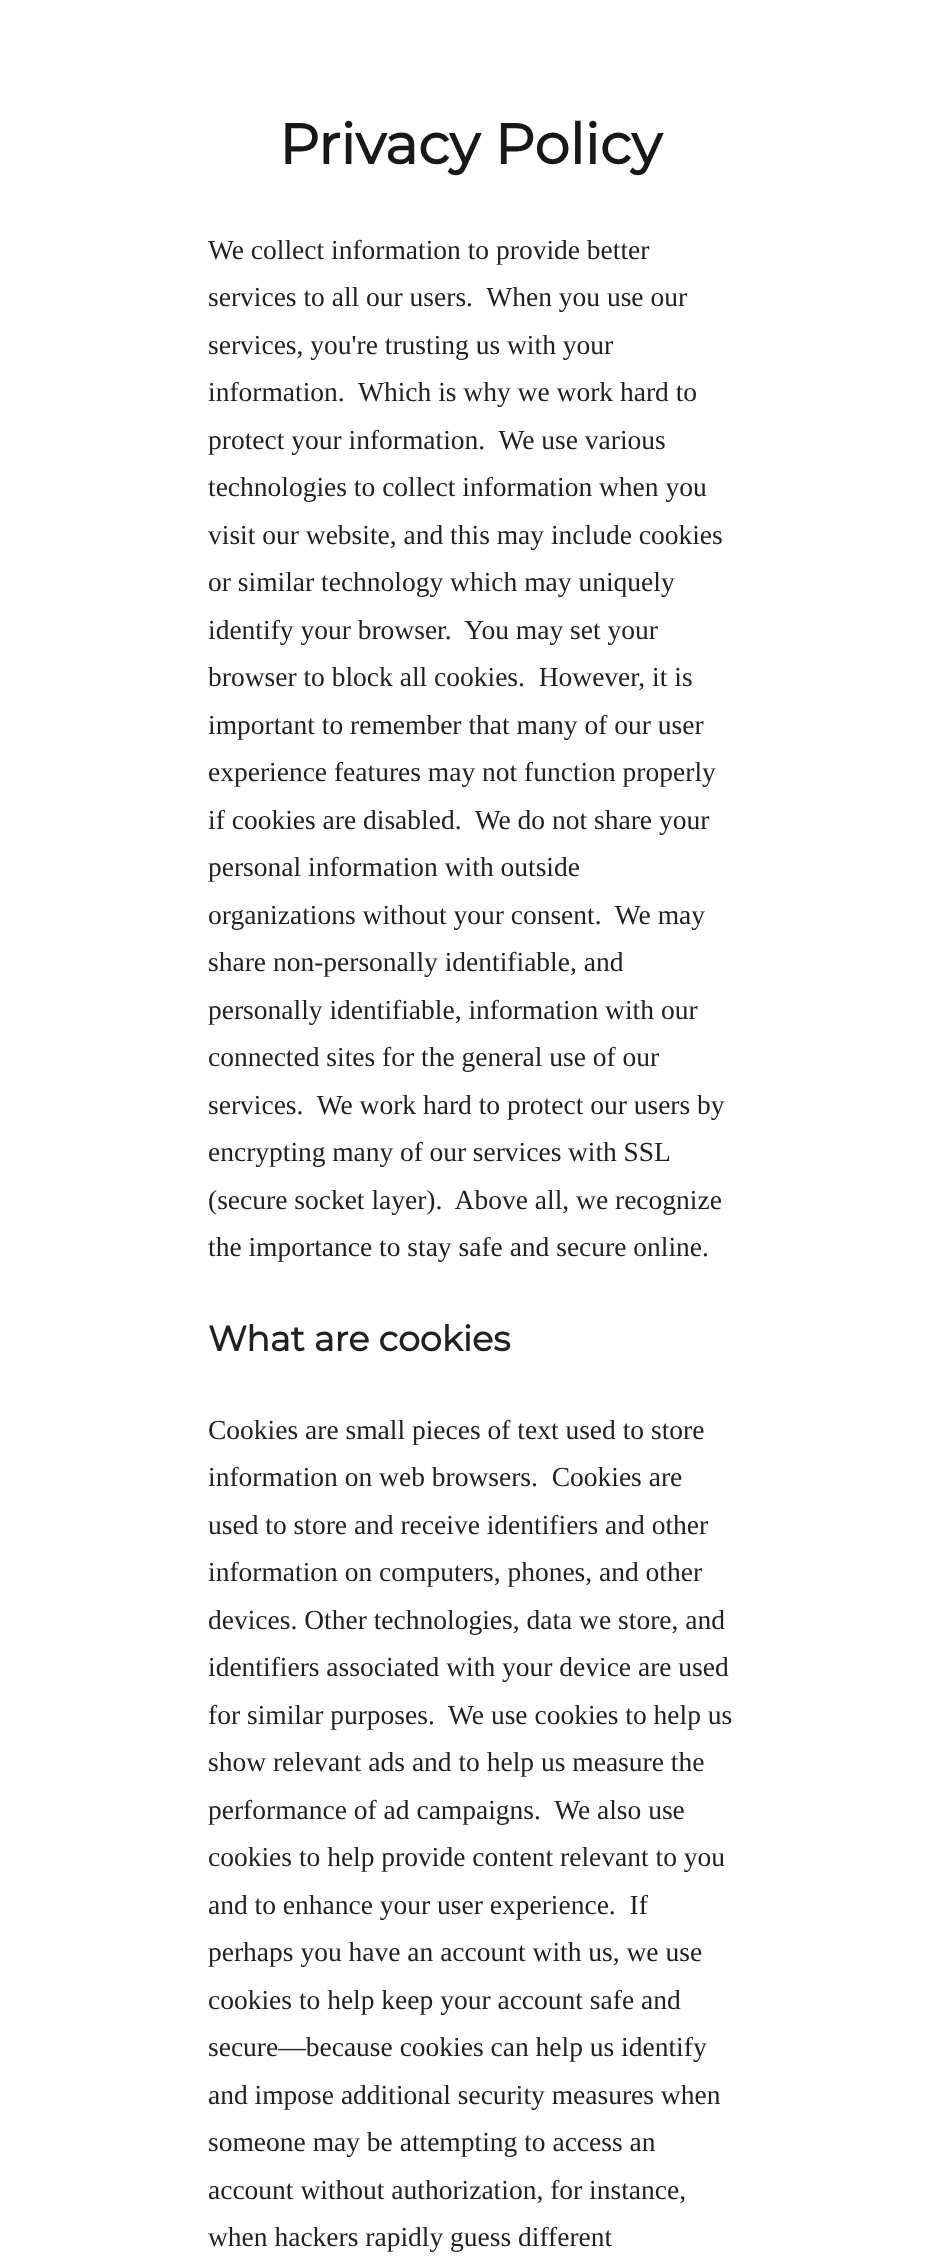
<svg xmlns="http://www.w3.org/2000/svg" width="941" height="2268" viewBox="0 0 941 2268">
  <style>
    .t1 { font: bold 56.25px Montserrat; fill: #181818; }
    .t2 { font: 27.5px Liberation Serif; fill: #212121; }
    .t3 { font: bold 35px Montserrat; fill: #212121; }
  </style>
  <rect width="100%" height="100%" fill="#fff"/>
  <text x="279" y="164" class="t1">Privacy Policy</text>
  <text x="208" y="259" class="t2">We collect information to provide better</text>
  <text x="208" y="306" class="t2" xml:space="preserve">services to all our users.  When you use our</text>
  <text x="208" y="354" class="t2">services, you're trusting us with your</text>
  <text x="208" y="401" class="t2" xml:space="preserve">information.  Which is why we work hard to</text>
  <text x="208" y="449" class="t2" xml:space="preserve">protect your information.  We use various</text>
  <text x="208" y="496" class="t2">technologies to collect information when you</text>
  <text x="208" y="544" class="t2">visit our website, and this may include cookies</text>
  <text x="208" y="591" class="t2">or similar technology which may uniquely</text>
  <text x="208" y="639" class="t2" xml:space="preserve">identify your browser.  You may set your</text>
  <text x="208" y="686" class="t2" xml:space="preserve">browser to block all cookies.  However, it is</text>
  <text x="208" y="734" class="t2">important to remember that many of our user</text>
  <text x="208" y="781" class="t2">experience features may not function properly</text>
  <text x="208" y="829" class="t2" xml:space="preserve">if cookies are disabled.  We do not share your</text>
  <text x="208" y="876" class="t2">personal information with outside</text>
  <text x="208" y="924" class="t2" xml:space="preserve">organizations without your consent.  We may</text>
  <text x="208" y="971" class="t2">share non-personally identifiable, and</text>
  <text x="208" y="1019" class="t2">personally identifiable, information with our</text>
  <text x="208" y="1066" class="t2">connected sites for the general use of our</text>
  <text x="208" y="1114" class="t2" xml:space="preserve">services.  We work hard to protect our users by</text>
  <text x="208" y="1161" word-spacing="-0.25" class="t2">encrypting many of our services with SSL</text>
  <text x="208" y="1209" class="t2" xml:space="preserve">(secure socket layer).  Above all, we recognize</text>
  <text x="208" y="1256" class="t2">the importance to stay safe and secure online.</text>
  <text x="208" y="1351" class="t3">What are cookies</text>
  <text x="208" y="1439" class="t2">Cookies are small pieces of text used to store</text>
  <text x="208" y="1486" class="t2" xml:space="preserve">information on web browsers.  Cookies are</text>
  <text x="208" y="1534" class="t2">used to store and receive identifiers and other</text>
  <text x="208" y="1581" class="t2">information on computers, phones, and other</text>
  <text x="208" y="1629" class="t2">devices. Other technologies, data we store, and</text>
  <text x="208" y="1676" class="t2">identifiers associated with your device are used</text>
  <text x="208" y="1724" class="t2" xml:space="preserve">for similar purposes.  We use cookies to help us</text>
  <text x="208" y="1771" class="t2">show relevant ads and to help us measure the</text>
  <text x="208" y="1819" class="t2" xml:space="preserve">performance of ad campaigns.  We also use</text>
  <text x="208" y="1866" class="t2">cookies to help provide content relevant to you</text>
  <text x="208" y="1914" class="t2" xml:space="preserve">and to enhance your user experience.  If</text>
  <text x="208" y="1961" class="t2">perhaps you have an account with us, we use</text>
  <text x="208" y="2009" class="t2">cookies to help keep your account safe and</text>
  <text x="208" y="2056" class="t2">secure—because cookies can help us identify</text>
  <text x="208" y="2104" class="t2">and impose additional security measures when</text>
  <text x="208" y="2151" class="t2">someone may be attempting to access an</text>
  <text x="208" y="2199" class="t2">account without authorization, for instance,</text>
  <text x="208" y="2246" class="t2">when hackers rapidly guess different</text>
</svg>
